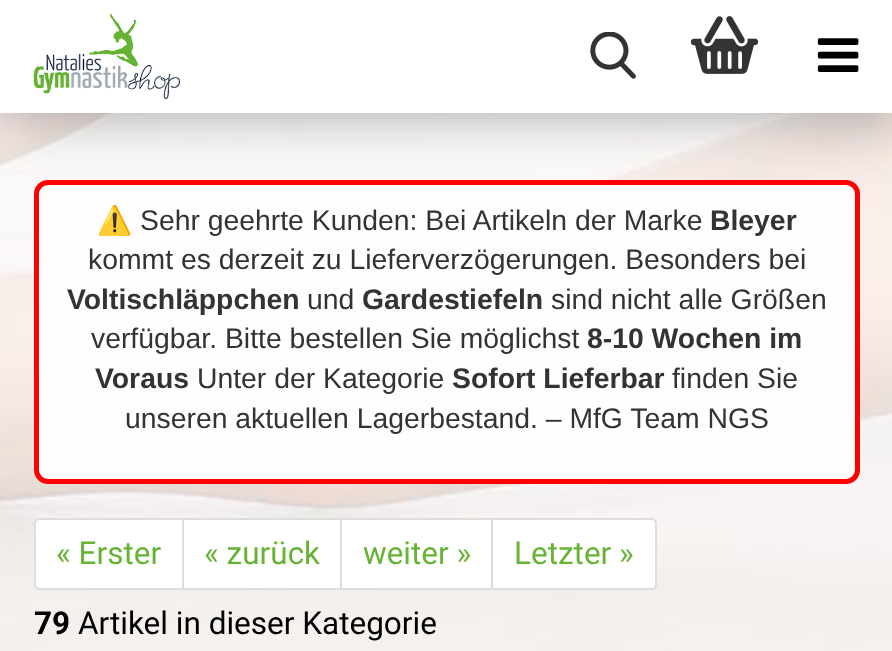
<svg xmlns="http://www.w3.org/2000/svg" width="892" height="651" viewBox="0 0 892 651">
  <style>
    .t1 { font: 28.35px Noto Color Emoji; fill: #333; }
    .t2 { font: 28.35px Liberation Sans; fill: #333; }
    .t3 { font: bold 28.35px Liberation Sans; fill: #333; }
    .t4 { font: 31.5px Roboto; fill: #67b336; }
    .t5 { font: bold 31.5px Roboto; fill: #000; }
    .t6 { font: 31.5px Roboto; fill: #000; }
  </style>
  <rect width="100%" height="100%" fill="#fff"/>
  <image x="0" y="113" width="892" height="538" href="images/1.png"/>
  <rect x="0" y="113" width="892" height="538" fill="#ffffff80"/>
  <rect x="36.5" y="182.5" width="821" height="299" rx="11.5" fill="#fffdfd" stroke="#f00" stroke-width="5"/>
  <rect x="0" y="0" width="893" height="113" fill="#00000059" filter="blur(28px)"/>
  <rect x="0" y="0" width="892" height="113" fill="#fff"/>
  <image x="33" y="13" width="147" height="86" href="images/2.png"/>
  <image x="590" y="32" width="46" height="47" href="images/3.png"/>
  <image x="691" y="16" width="67" height="58" href="images/4.png"/>
  <image x="817" y="38" width="42" height="34" href="images/5.png"/>
  <text x="97" y="230" class="t1">⚠️</text>
  <text x="140" y="230" class="t2">Sehr geehrte Kunden: Bei Artikeln der Marke</text>
  <text x="710" y="230" class="t3">Bleyer</text>
  <text x="88" y="269" class="t2">kommt es derzeit zu Lieferverzögerungen. Besonders bei</text>
  <text x="67" y="309" class="t3">Voltischläppchen</text>
  <text x="307" y="309" class="t2">und</text>
  <text x="362" y="309" class="t3">Gardestiefeln</text>
  <text x="551" y="309" class="t2">sind nicht alle Größen</text>
  <text x="91" y="348" class="t2">verfügbar. Bitte bestellen Sie möglichst</text>
  <text x="587" y="348" class="t3">8-10 Wochen im</text>
  <text x="95" y="388" class="t3">Voraus</text>
  <text x="197" y="388" class="t2">Unter der Kategorie</text>
  <text x="452" y="388" class="t3">Sofort Lieferbar</text>
  <text x="672" y="388" class="t2">finden Sie</text>
  <text x="125" y="428" class="t2">unseren aktuellen Lagerbestand. – MfG Team NGS</text>
  <path d="M39 519H184V589H39C37 589 35 587 35 585V523C35 521 37 519 39 519Z" fill="#fff" stroke="#ddd" stroke-width="2"/>
  <text x="56" y="564" class="t4">« Erster</text>
  <rect x="183" y="519" width="158" height="70" fill="#fff" stroke="#ddd" stroke-width="2"/>
  <text x="204" y="564" class="t4">« zurück</text>
  <rect x="341" y="519" width="151" height="70" fill="#fff" stroke="#ddd" stroke-width="2"/>
  <text x="363" y="564" class="t4">weiter »</text>
  <path d="M492 519H652C654 519 656 521 656 523V585C656 587 654 589 652 589H492Z" fill="#fff" stroke="#ddd" stroke-width="2"/>
  <text x="514" y="564" class="t4">Letzter »</text>
  <text x="34" y="634" class="t5">79</text>
  <text x="78" y="634" class="t6">Artikel in dieser Kategorie</text>
</svg>
